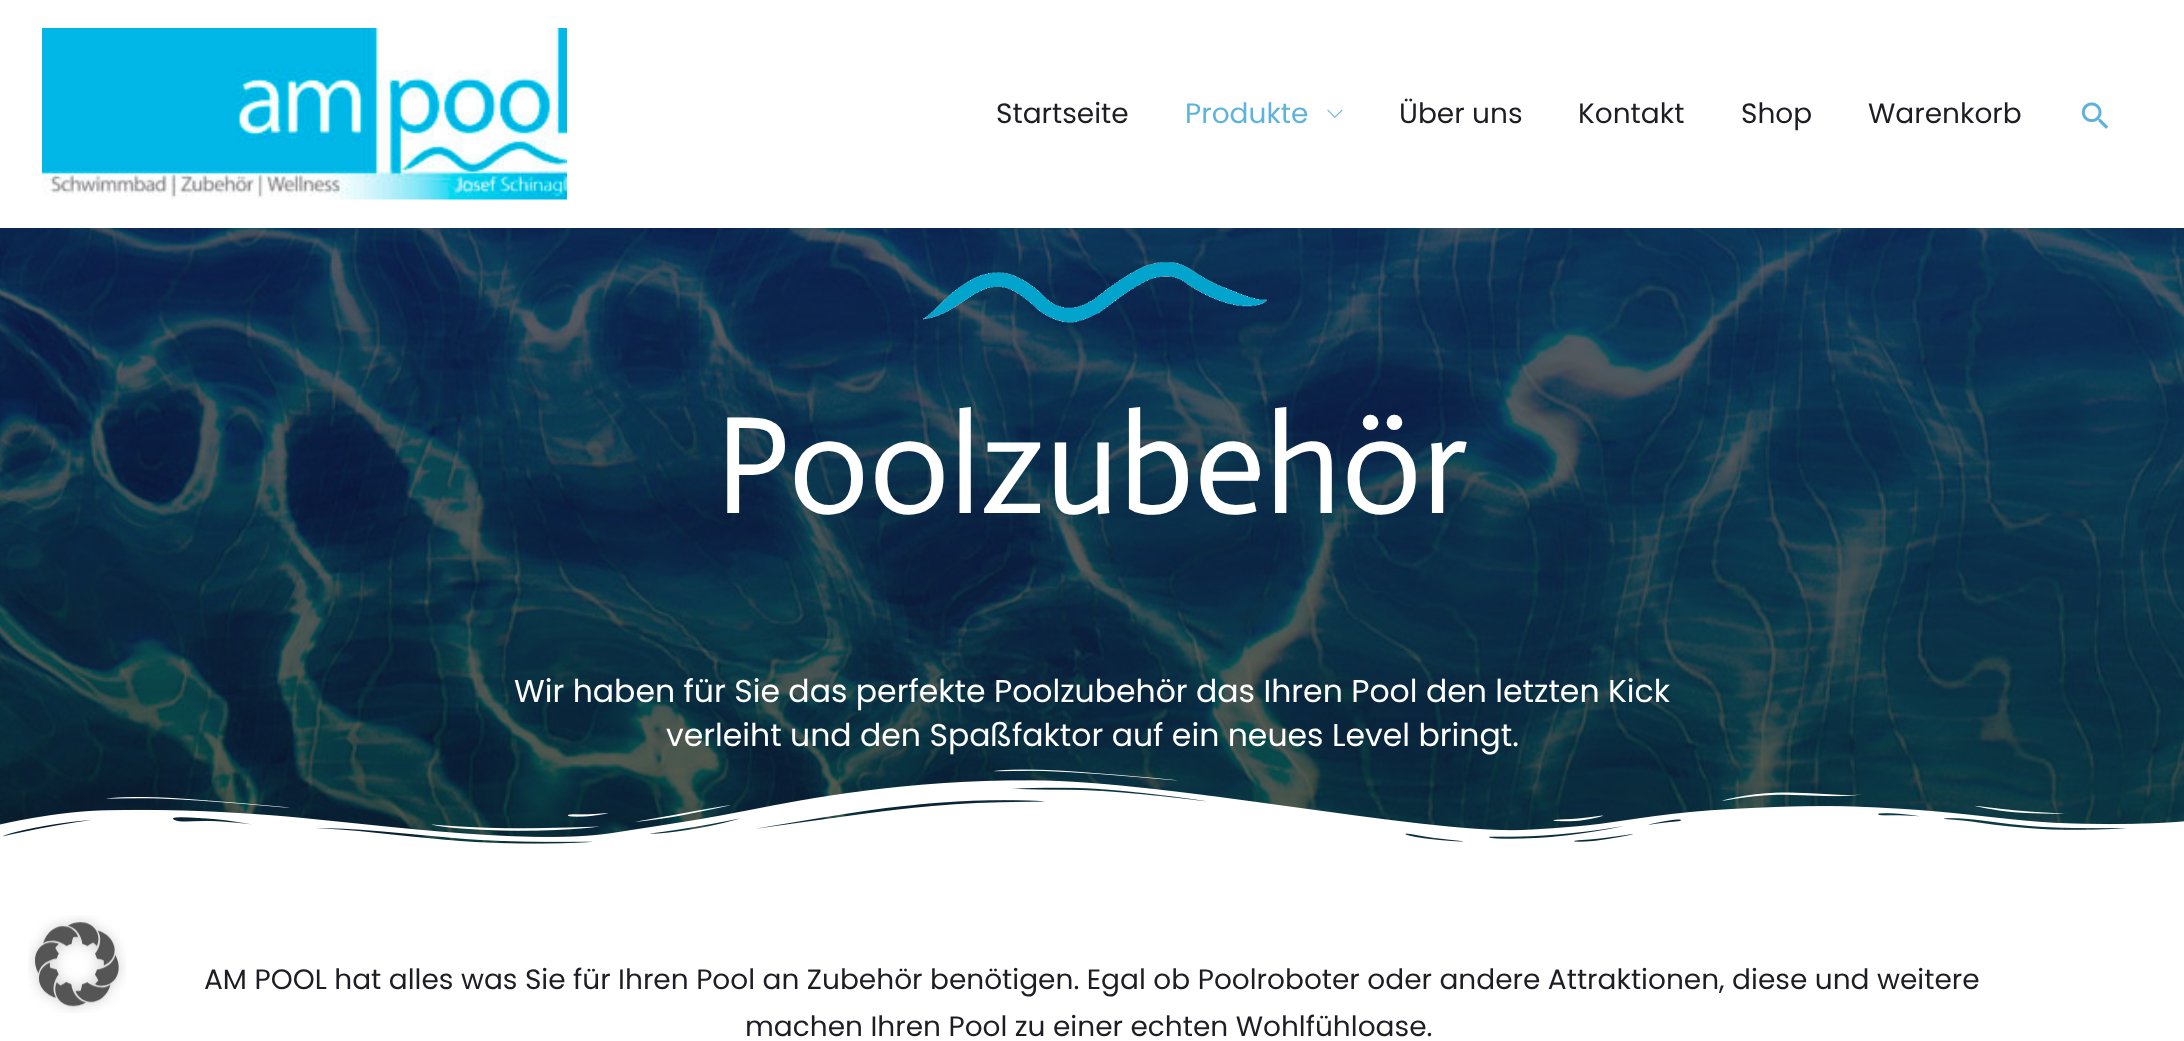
<svg xmlns="http://www.w3.org/2000/svg" width="2184" height="1041" viewBox="0 0 2184 1041">
  <style>
    .t1 { font: 28px Poppins; fill: #1d1d23; }
    .t2 { font: 28px Poppins; fill: #5eb3dc; }
    .t3 { font: 140px Actor; fill: #fff; }
    .t4 { font: 31.5px Poppins; fill: #fff; }
  </style>
  <rect width="100%" height="100%" fill="#fff"/>
  <image x="28" y="915" width="98" height="98" href="images/1.png"/>
  <image x="42" y="28" width="525" height="172" href="images/2.png"/>
  <text x="996" y="123" class="t1">Startseite</text>
  <text x="1185" y="123" class="t2">Produkte</text>
  <image x="1327" y="109" width="16" height="9" href="images/3.png"/>
  <text x="1399" y="123" class="t1">Über uns</text>
  <text x="1578" y="123" class="t1">Kontakt</text>
  <text x="1741" y="123" class="t1">Shop</text>
  <text x="1868" y="123" class="t1">Warenkorb</text>
  <image x="2081" y="102" width="28" height="27" href="images/4.png"/>
  <image x="0" y="228" width="2184" height="616" href="images/5.png"/>
  <image x="923" y="262" width="344" height="61" href="images/6.png"/>
  <text x="715" y="513" class="t3">Poolzubehör</text>
  <text x="514" y="702" class="t4">Wir haben für Sie das perfekte Poolzubehör das Ihren Pool den letzten Kick</text>
  <text x="666" y="746" class="t4">verleiht und den Spaßfaktor auf ein neues Level bringt.</text>
  <image x="0" y="769" width="2184" height="84" href="images/7.png"/>
  <text x="204" y="989" class="t1">AM POOL hat alles was Sie für Ihren Pool an Zubehör benötigen. Egal ob Poolroboter oder andere Attraktionen, diese und weitere</text>
  <text x="745" y="1036" class="t1">machen Ihren Pool zu einer echten Wohlfühloase.</text>
</svg>
